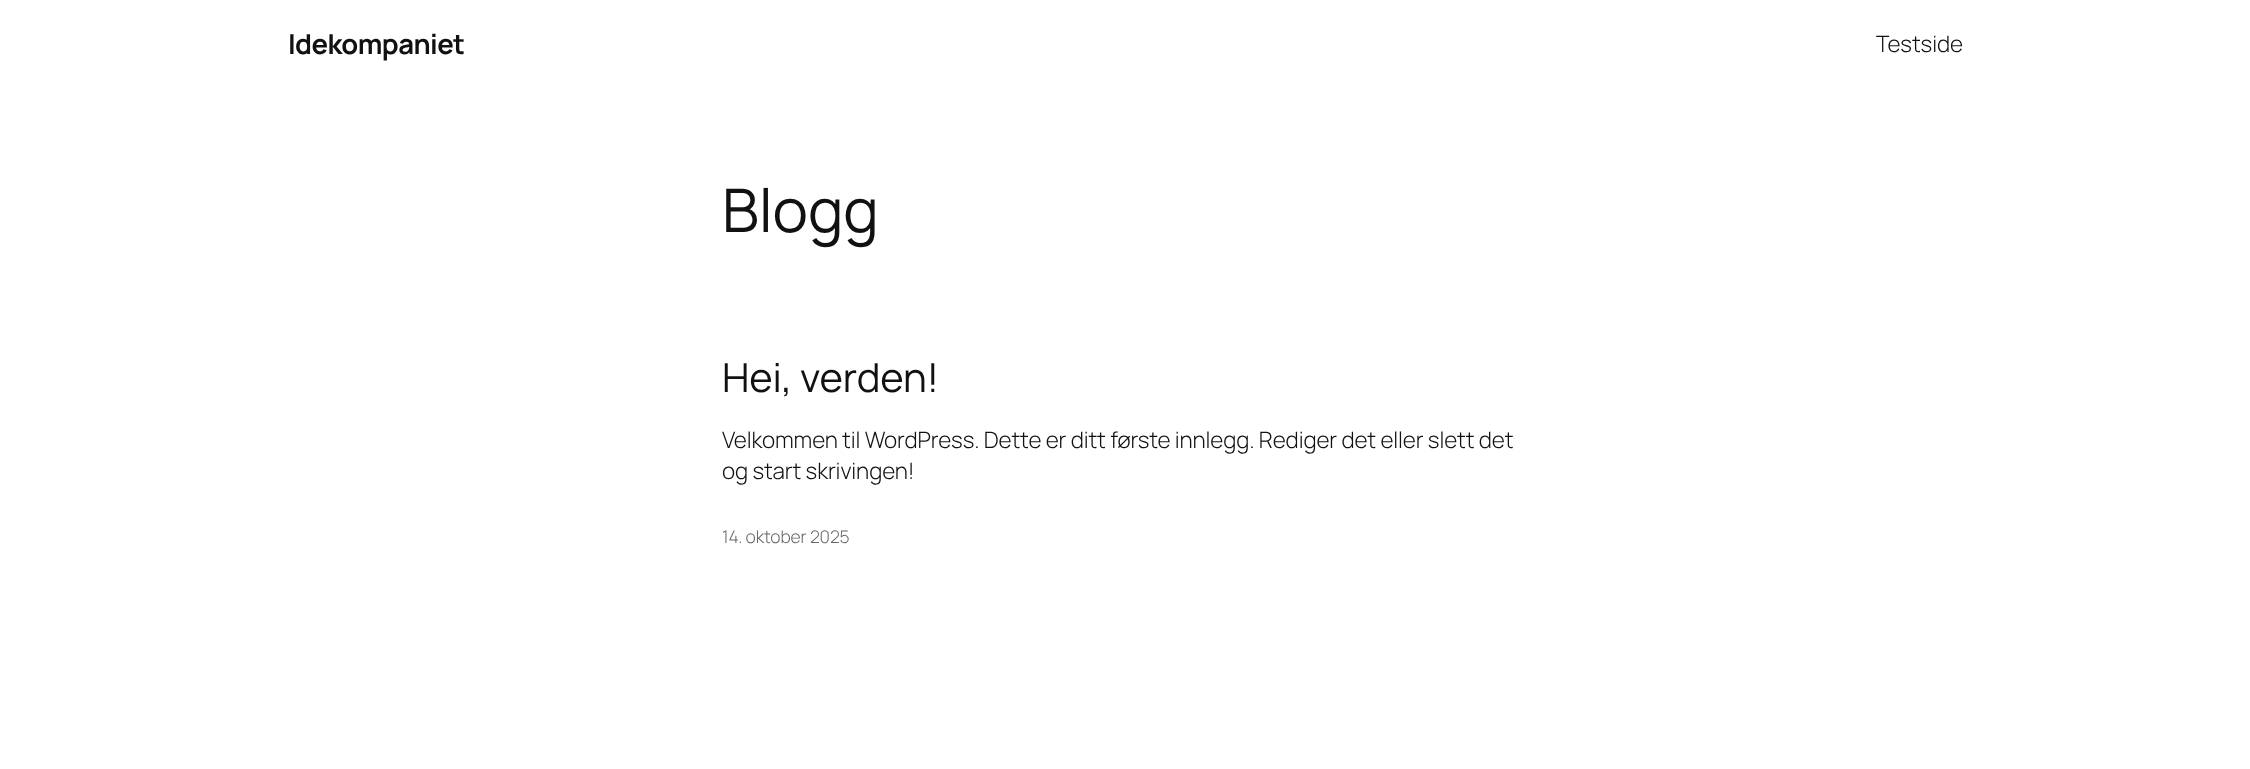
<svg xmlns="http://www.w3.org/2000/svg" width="2250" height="769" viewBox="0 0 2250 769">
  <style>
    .t1 { font: bold 27.5px Manrope; letter-spacing: -0.6px; fill: #111; }
    .t2 { font: 300 22.5px Manrope; letter-spacing: -0.12px; fill: #111; }
    .t3 { font: 60px Manrope; letter-spacing: -0.12px; fill: #111; }
    .t4 { font: 40px Manrope; letter-spacing: -0.12px; fill: #111; }
    .t5 { font: 300 17.5px Manrope; letter-spacing: -0.12px; fill: #686868; }
  </style>
  <rect width="100%" height="100%" fill="#fff"/>
  <text x="288" y="54" class="t1">Idekompaniet</text>
  <text x="1876" y="52" class="t2">Testside</text>
  <text x="722" y="232" class="t3">Blogg</text>
  <text x="722" y="392" class="t4">Hei, verden!</text>
  <text x="722" y="448" class="t2">Velkommen til WordPress. Dette er ditt første innlegg. Rediger det eller slett det</text>
  <text x="722" y="479" class="t2">og start skrivingen!</text>
  <text x="722" y="543" class="t5">14. oktober 2025</text>
</svg>
